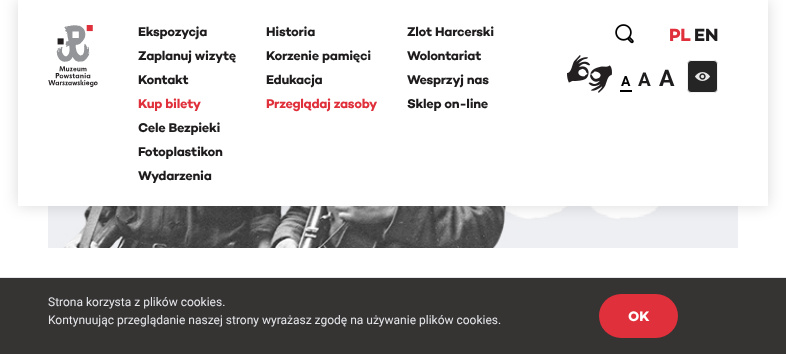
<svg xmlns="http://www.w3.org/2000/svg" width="786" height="354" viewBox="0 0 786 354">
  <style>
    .t1 { font: bold 13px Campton; letter-spacing: -0.25px; fill: #1e1c1c; }
    .t2 { font: bold 13px Campton; letter-spacing: -0.25px; fill: #e0303b; }
    .t3 { font: bold 18px Campton; fill: #e0303b; }
    .t4 { font: bold 18px Campton; fill: #1e1c1c; }
    .t5 { font: bold 14px Roboto; fill: #000; }
    .t6 { font: bold 19px Roboto; fill: #1e1c1c; }
    .t7 { font: bold 23px Roboto; fill: #1e1c1c; }
    .t8 { font: 12px Roboto; fill: #e4e6ea; }
    .t9 { font: bold 14px Campton; fill: #fff; }
  </style>
  <rect width="100%" height="100%" fill="#fff"/>
  <image x="48" y="206" width="690" height="42" href="images/5.png"/>
  <rect x="18" y="0" width="750" height="206" fill="#00000026" filter="blur(7.5px)"/>
  <rect x="18" y="0" width="750" height="206" fill="#fff"/>
  <image x="48" y="25" width="50" height="62" href="images/1.png"/>
  <text x="138" y="36" class="t1">Ekspozycja</text>
  <text x="138" y="60" class="t1">Zaplanuj wizytę</text>
  <text x="138" y="84" class="t1">Kontakt</text>
  <text x="138" y="108" class="t2">Kup bilety</text>
  <text x="266" y="36" class="t1">Historia</text>
  <text x="266" y="60" class="t1">Korzenie pamięci</text>
  <text x="266" y="84" class="t1">Edukacja</text>
  <text x="266" y="108" class="t2">Przeglądaj zasoby</text>
  <text x="407" y="36" class="t1">Zlot Harcerski</text>
  <text x="407" y="60" class="t1">Wolontariat</text>
  <text x="407" y="84" class="t1">Wesprzyj nas</text>
  <text x="407" y="108" class="t1">Sklep on-line</text>
  <text x="138" y="132" class="t1">Cele Bezpieki</text>
  <text x="138" y="156" class="t1">Fotoplastikon</text>
  <text x="138" y="180" class="t1">Wydarzenia</text>
  <image x="615" y="24" width="19" height="20" href="images/2.png"/>
  <text x="669" y="41" class="t3">PL</text>
  <text x="694" y="41" class="t4">EN</text>
  <image x="567" y="55" width="45" height="38" href="images/3.png"/>
  <text x="621" y="86" class="t5">A</text>
  <rect x="620" y="90" width="12" height="2" fill="#000"/>
  <text x="638" y="86" class="t6">A</text>
  <text x="659" y="86" class="t7">A</text>
  <rect x="687.5" y="60.5" width="30" height="32" rx="3.5" fill="#252525" stroke="#f1f1f1"/>
  <image x="695" y="72" width="15" height="9" href="images/4.png"/>
  <rect x="0" y="278" width="786" height="76" fill="#363333"/>
  <rect x="0" y="277" width="786" height="1" fill="#e4e6ea"/>
  <text x="48" y="306" class="t8">Strona korzysta z plików cookies.</text>
  <text x="48" y="324" class="t8">Kontynuując przeglądanie naszej strony wyrażasz zgodę na używanie plików cookies.</text>
  <rect x="599" y="294" width="79" height="44" rx="22" fill="#e0303b"/>
  <text x="628" y="321" class="t9">OK</text>
</svg>
